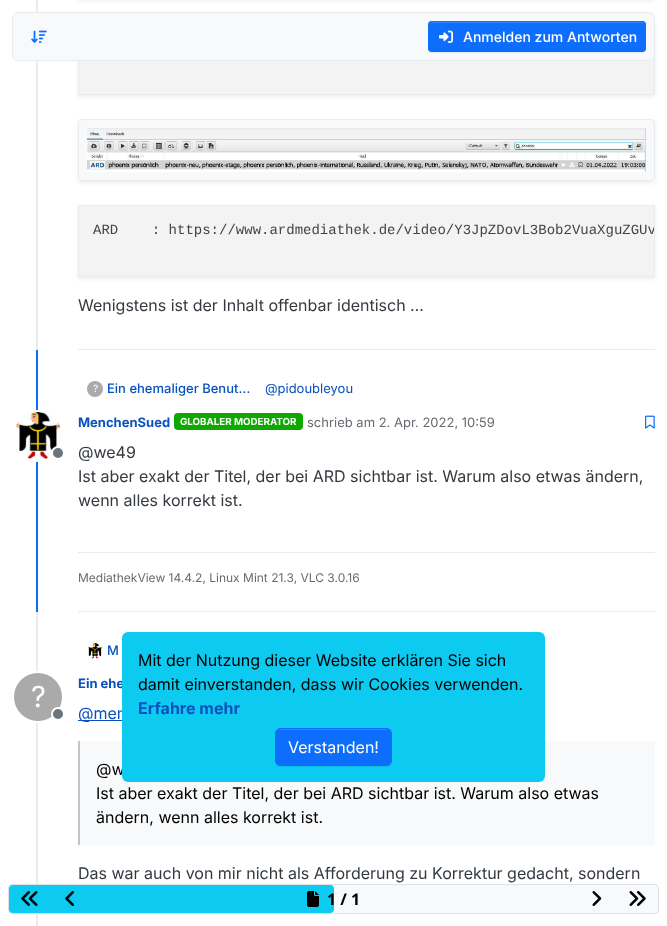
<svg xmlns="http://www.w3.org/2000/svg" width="667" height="926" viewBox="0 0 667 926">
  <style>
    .t1 { font: 500 14px Inter; fill: #fff; }
    .t2 { font: 14px Liberation Mono; fill: #444; }
    .t3 { font: 16px Inter; fill: #343a40; }
    .t4 { font: 10px Inter; fill: #fff; }
    .t5 { font: 500 13px Inter; fill: #0951be; }
    .t6 { font: 13px Inter; fill: #0951be; }
    .t7 { font: bold 13px Inter; fill: #0951be; }
    .t8 { font: bold 9.75px Inter; fill: #fff; }
    .t9 { font: 13px Inter; fill: #676b70; }
    .t10 { font: 12px Inter; fill: #676b70; }
    .t11 { font: 29px Inter; fill: #fff; }
    .t12 { font: 16px Inter; fill: #0951be; }
    .t13 { font: 16px Inter; fill: #000; }
    .t14 { font: bold 16px Inter; fill: #0951be; }
    .t15 { font: 16px Inter; fill: #fff; }
    .t16 { font: bold 16px Noto Sans; fill: #000; }
  </style>
  <defs>
    <clipPath id="clip1"><rect x="79" y="206" width="575" height="70"/></clipPath>
  </defs>
  <rect width="100%" height="100%" fill="#fff"/>
  <rect x="36" y="0" width="2" height="350" fill="#e9ecef"/>
  <rect x="78" y="25" width="577" height="72" fill="#00000012" filter="blur(2px)"/>
  <rect x="78.5" y="23.5" width="576" height="71" fill="none" stroke="#e9ecef"/>
  <rect x="80" y="58" width="573" height="36" fill="#f3f3f3"/>
  <rect x="12.5" y="12.5" width="642" height="48" rx="5.5" fill="#f8f9fa" stroke="#e9ecef"/>
  <image x="31" y="30" width="16" height="13" href="images/1.png"/>
  <rect x="428" y="22" width="218" height="31" rx="4" fill="#00000012" filter="blur(0.5px)"/>
  <rect x="428" y="21" width="218" height="31" rx="4" fill="#0d6efd"/>
  <path d="M432 23H642C644 23 645 24 645 26V25C645 23 644 22 642 22H432C430 22 429 23 429 25V26C429 24 430 23 432 23Z" fill="#3184fd"/>
  <rect x="428.5" y="21.5" width="217" height="30" rx="3.5" fill="none" stroke="#0d6efd"/>
  <image x="439" y="30" width="14" height="13" href="images/2.png"/>
  <text x="463" y="42" class="t1">Anmelden zum Antworten</text>
  <rect x="78" y="-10" width="577" height="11" rx="4" fill="#00000012" filter="blur(2px)"/>
  <rect x="78" y="121" width="577" height="62" rx="4" fill="#00000012" filter="blur(2px)"/>
  <rect x="78.5" y="119.5" width="576" height="61" rx="3.5" fill="#f8f9fa" stroke="#e9ecef"/>
  <image x="87" y="128" width="559" height="44" href="images/3.png"/>
  <rect x="78" y="207" width="577" height="72" fill="#00000012" filter="blur(2px)"/>
  <rect x="78.5" y="205.5" width="576" height="71" fill="none" stroke="#e9ecef"/>
  <rect x="79" y="206" width="575" height="70" fill="#f3f3f3"/>
  <g clip-path="url(#clip1)">
    <text x="93" y="234" class="t2" xml:space="preserve">ARD    : https://www.ardmediathek.de/video/Y3JpZDovL3Bob2VuaXguZGUv</text>
  </g>
  <text x="78" y="311" class="t3">Wenigstens ist der Inhalt offenbar identisch …</text>
  <rect x="78" y="349" width="577" height="1" fill="#e9ecef"/>
  <rect x="36" y="350" width="2" height="262" fill="#0d6efd"/>
  <circle cx="95" cy="389" r="8" fill="#aaa"/>
  <text x="93" y="392" class="t4">?</text>
  <text x="107" y="393" class="t5">Ein ehemaliger Benut…</text>
  <text x="265" y="393" class="t6">@pidoubleyou</text>
  <circle cx="38" cy="436" r="25" fill="#fff" stroke="#fff" stroke-width="2"/>
  <image x="15" y="412" width="46" height="48" href="images/4.png"/>
  <circle cx="58" cy="453" r="6" fill="#6c757d" stroke="#fff" stroke-width="2"/>
  <text x="78" y="427" class="t7">MenchenSued</text>
  <rect x="174" y="413" width="129" height="17" rx="4" fill="#0ea800"/>
  <text x="180" y="425" class="t8">GLOBALER MODERATOR</text>
  <text x="307" y="427" class="t9">schrieb am 2. Apr. 2022, 10:59</text>
  <image x="645" y="415" width="10" height="14" href="images/5.png"/>
  <text x="78" y="458" class="t3">@we49</text>
  <text x="78" y="482" class="t3">Ist aber exakt der Titel, der bei ARD sichtbar ist. Warum also etwas ändern,</text>
  <text x="78" y="506" class="t3">wenn alles korrekt ist.</text>
  <rect x="78" y="611" width="577" height="1" fill="#e9ecef"/>
  <rect x="78" y="552" width="577" height="1" fill="#e9ecef"/>
  <text x="78" y="582" class="t10">MediathekView 14.4.2, Linux Mint 21.3, VLC 3.0.16</text>
  <rect x="36" y="612" width="2" height="314" fill="#e9ecef"/>
  <image x="87" y="643" width="16" height="16" href="images/6.png"/>
  <text x="107" y="655" class="t5">M</text>
  <circle cx="38" cy="697" r="25" fill="none" stroke="#fff" stroke-width="2"/>
  <circle cx="38" cy="697" r="24" fill="#aaa"/>
  <text x="31" y="707" class="t11">?</text>
  <circle cx="58" cy="714" r="6" fill="#6c757d" stroke="#fff" stroke-width="2"/>
  <text x="78" y="688" class="t7">Ein ehe</text>
  <rect x="78" y="720" width="44" height="1" fill="#0951be"/>
  <text x="78" y="719" class="t12">@men</text>
  <rect x="80" y="741" width="575" height="104" fill="#f8f9fa"/>
  <rect x="78" y="741" width="2" height="104" fill="#c2c4c6"/>
  <text x="96" y="775" class="t13">@w</text>
  <text x="96" y="799" class="t13">Ist aber exakt der Titel, der bei ARD sichtbar ist. Warum also etwas</text>
  <text x="96" y="823" class="t13">ändern, wenn alles korrekt ist.</text>
  <text x="78" y="879" class="t3">Das war auch von mir nicht als Afforderung zu Korrektur gedacht, sondern</text>
  <rect x="122" y="632" width="423" height="150" rx="6" fill="#0dcaf0"/>
  <text x="138" y="666" class="t13">Mit der Nutzung dieser Website erklären Sie sich</text>
  <text x="138" y="690" class="t13">damit einverstanden, dass wir Cookies verwenden.</text>
  <text x="138" y="714" class="t14">Erfahre mehr</text>
  <rect x="275" y="729" width="117" height="38" rx="6" fill="#00000012" filter="blur(0.5px)"/>
  <rect x="275" y="728" width="117" height="38" rx="6" fill="#0d6efd"/>
  <path d="M281 730H386C389 730 391 732 391 735C391 725 373 729 368 729H298C294 729 276 725 276 735C276 732 278 730 281 730Z" fill="#3184fd"/>
  <rect x="275.5" y="728.5" width="116" height="37" rx="5.5" fill="none" stroke="#0d6efd"/>
  <text x="288" y="753" class="t15">Verstanden!</text>
  <rect x="8.5" y="884.5" width="650" height="29" rx="3.5" fill="#f8f9fa" stroke="#dee2e6"/>
  <rect x="9" y="885" width="325" height="28" rx="4" fill="#0dcaf0"/>
  <image x="21" y="891" width="17" height="15" href="images/7.png"/>
  <image x="65" y="891" width="9" height="15" href="images/8.png"/>
  <image x="307" y="891" width="12" height="16" href="images/9.png"/>
  <text x="327" y="905" class="t16">1 / 1</text>
  <image x="592" y="891" width="10" height="15" href="images/10.png"/>
  <image x="629" y="891" width="17" height="15" href="images/11.png"/>
</svg>
